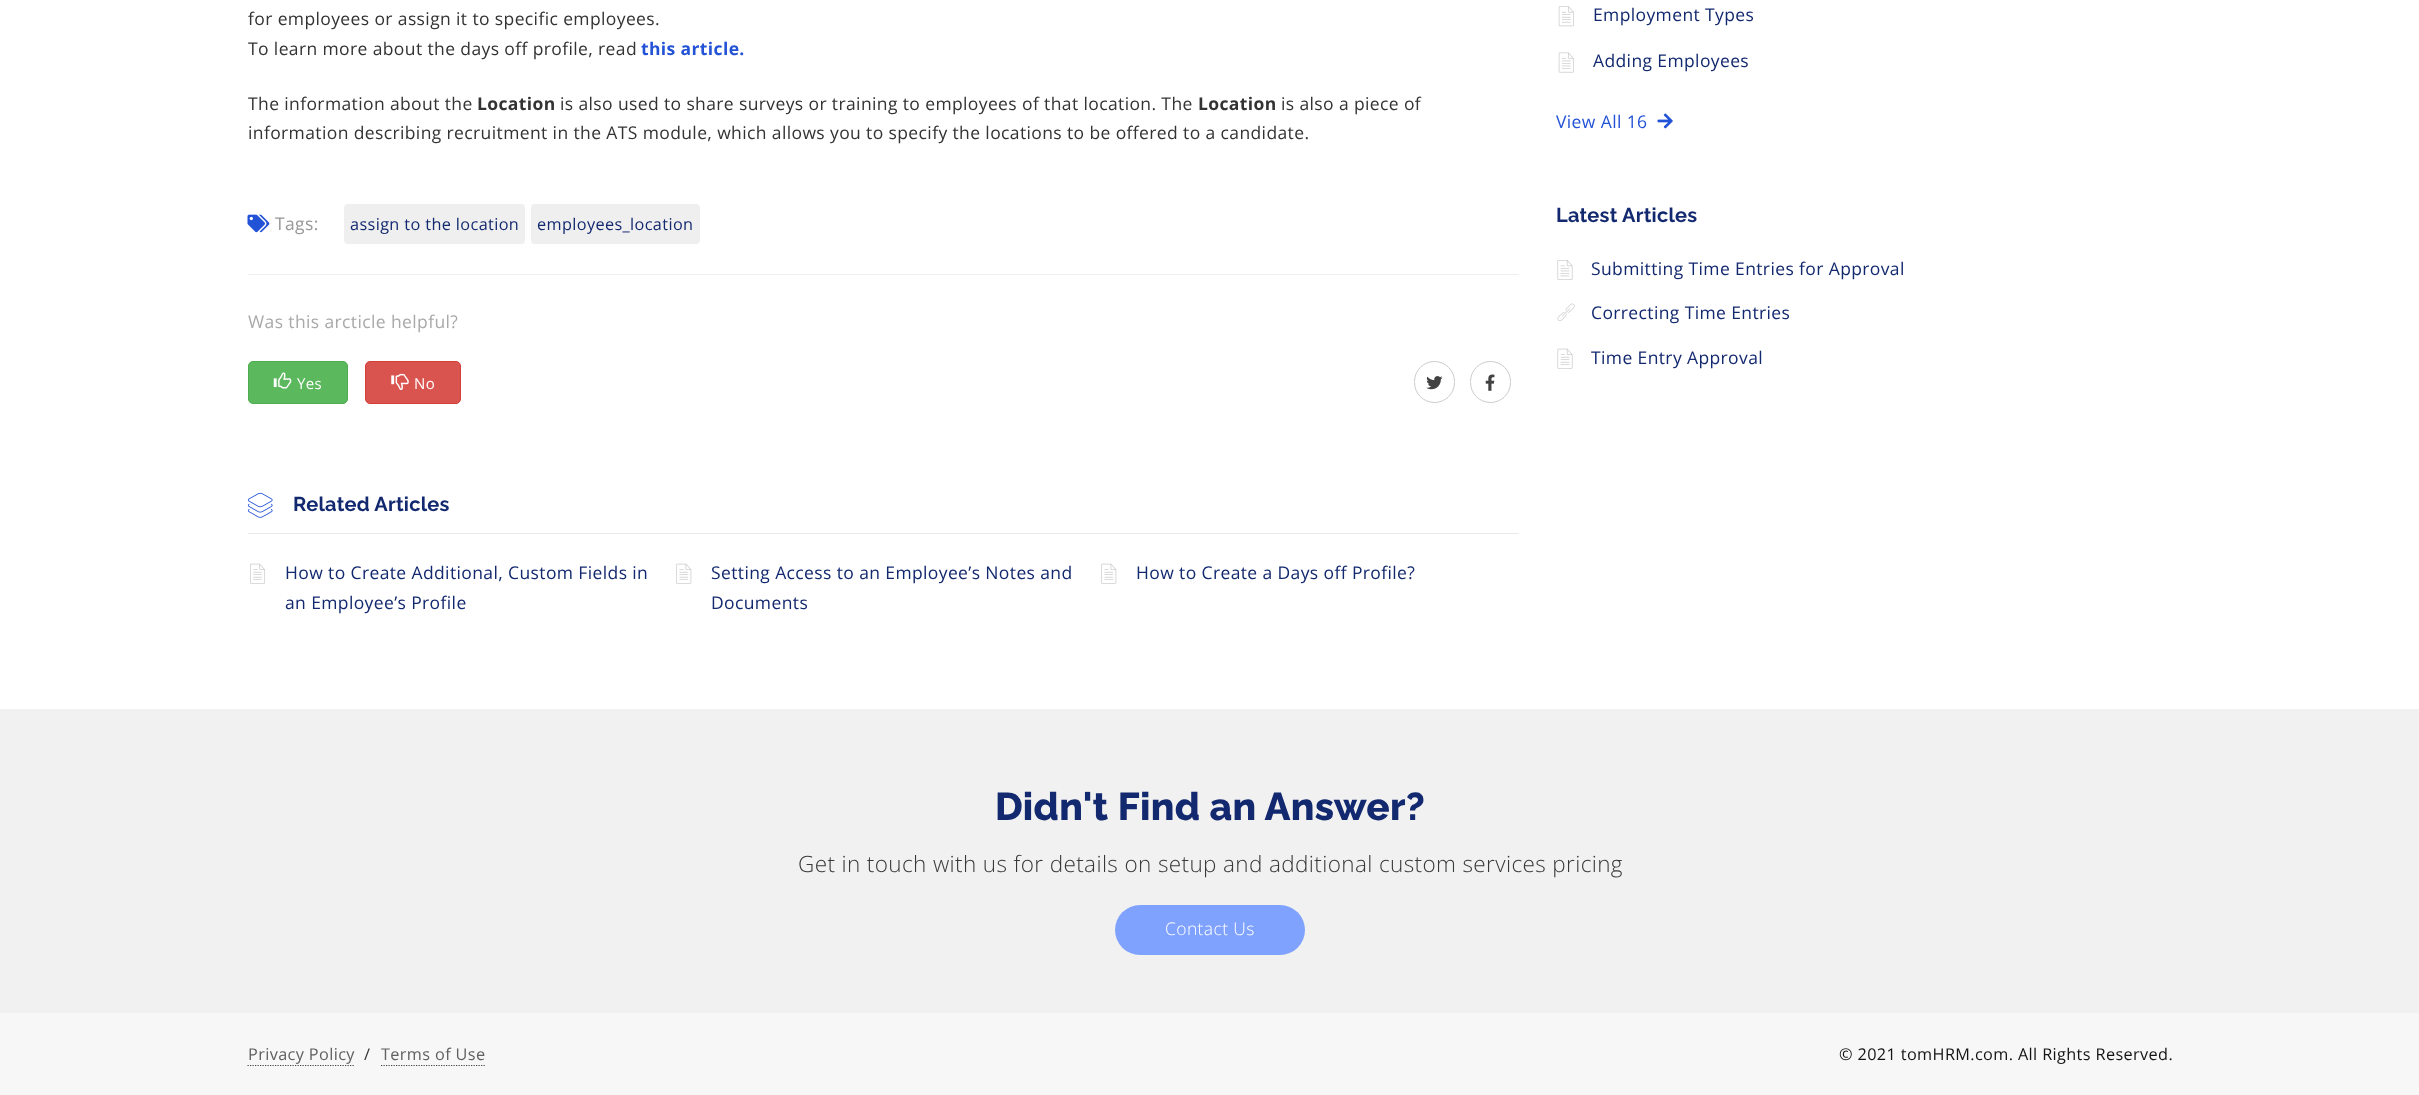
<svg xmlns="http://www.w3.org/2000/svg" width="2419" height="1095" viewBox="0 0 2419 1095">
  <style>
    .t1 { font: 17.5px Open Sans; letter-spacing: 0.38px; fill: #333; }
    .t2 { font: bold 17.5px Open Sans; letter-spacing: 0.38px; fill: #2252d6; }
    .t3 { font: bold 17.5px Open Sans; letter-spacing: 0.38px; fill: #333; }
    .t4 { font: 17.5px Open Sans; letter-spacing: 0.38px; fill: #979797; }
    .t5 { font: 16.25px Open Sans; letter-spacing: 0.38px; fill: #13296f; }
    .t6 { font: 17.5px Open Sans; letter-spacing: 0.38px; fill: #a9a9a9; }
    .t7 { font: 15px Open Sans; letter-spacing: 0.38px; fill: #fff; }
    .t8 { font: bold 20px Raleway; letter-spacing: 0.25px; fill: #13296f; }
    .t9 { font: 17.5px Open Sans; letter-spacing: 0.38px; fill: #13296f; }
    .t10 { font: 17.5px Open Sans; letter-spacing: 0.38px; fill: #2252d6; }
    .t11 { font: 800 38.75px Raleway; letter-spacing: 0.25px; fill: #13296f; }
    .t12 { font: 300 22.5px Open Sans; letter-spacing: 0.38px; fill: #38393a; }
    .t13 { font: 300 17.5px Open Sans; letter-spacing: 0.38px; fill: #fff; }
    .t14 { font: 16.25px Open Sans; letter-spacing: 0.38px; fill: #606060; }
    .t15 { font: 16.25px Open Sans; letter-spacing: 0.38px; fill: #333; }
    .t16 { font: 16.25px Open Sans; letter-spacing: 0.38px; fill: #141414; }
  </style>
  <rect width="100%" height="100%" fill="#fff"/>
  <text x="248" y="25" class="t1">for employees or assign it to specific employees.</text>
  <text x="248" y="55" class="t1">To learn more about the days off profile, read</text>
  <text x="641" y="55" class="t2">this article.</text>
  <text x="248" y="110" class="t1">The information about the</text>
  <text x="477" y="110" class="t3">Location</text>
  <text x="560" y="110" class="t1">is also used to share surveys or training to employees of that location. The</text>
  <text x="1198" y="110" class="t3">Location</text>
  <text x="1281" y="110" class="t1">is also a piece of</text>
  <text x="248" y="139" class="t1">information describing recruitment in the ATS module, which allows you to specify the locations to be offered to a candidate.</text>
  <image x="247" y="214" width="23" height="19" href="images/1.png"/>
  <text x="275" y="230" class="t4">Tags:</text>
  <rect x="344" y="204" width="181" height="40" rx="4" fill="#efefef"/>
  <text x="350" y="230" class="t5">assign to the location</text>
  <rect x="531" y="204" width="169" height="40" rx="4" fill="#efefef"/>
  <text x="537" y="230" class="t5">employees_location</text>
  <rect x="248" y="274" width="1271" height="1" fill="#efefef"/>
  <text x="248" y="328" class="t6">Was this arcticle helpful?</text>
  <rect x="248.5" y="361.5" width="99" height="42" rx="4.5" fill="#5cb85c" stroke="#4cae4c"/>
  <image x="273" y="372" width="19" height="17" href="images/2.png"/>
  <text x="297" y="389" class="t7">Yes</text>
  <rect x="365.5" y="361.5" width="95" height="42" rx="4.5" fill="#d9534f" stroke="#d43f3a"/>
  <image x="391" y="373" width="18" height="17" href="images/3.png"/>
  <text x="414" y="389" class="t7">No</text>
  <rect x="1414.5" y="361.5" width="40" height="41" rx="20" fill="none" stroke="#ccc"/>
  <image x="1426" y="376" width="17" height="14" href="images/4.png"/>
  <rect x="1470.5" y="361.5" width="40" height="41" rx="20" fill="none" stroke="#ccc"/>
  <image x="1485" y="374" width="10" height="17" href="images/5.png"/>
  <image x="247" y="492" width="26" height="26" href="images/6.png"/>
  <text x="293" y="511" class="t8">Related Articles</text>
  <rect x="248" y="533" width="1271" height="1" fill="#eaeaea"/>
  <image x="250" y="563" width="15" height="21" href="images/7.png"/>
  <text x="285" y="579" class="t9">How to Create Additional, Custom Fields in</text>
  <text x="285" y="609" class="t9">an Employee’s Profile</text>
  <image x="676" y="563" width="16" height="21" href="images/8.png"/>
  <text x="711" y="579" class="t9">Setting Access to an Employee’s Notes and</text>
  <text x="711" y="609" class="t9">Documents</text>
  <image x="1101" y="563" width="16" height="21" href="images/8.png"/>
  <text x="1136" y="579" class="t9">How to Create a Days off Profile?</text>
  <image x="1558" y="6" width="16" height="21" href="images/9.png"/>
  <text x="1593" y="21" class="t9">Employment Types</text>
  <image x="1558" y="52" width="16" height="21" href="images/10.png"/>
  <text x="1593" y="67" class="t9">Adding Employees</text>
  <text x="1556" y="128" class="t10">View All 16</text>
  <image x="1657" y="113" width="16" height="16" href="images/11.png"/>
  <text x="1556" y="222" class="t8">Latest Articles</text>
  <image x="1557" y="260" width="16" height="20" href="images/12.png"/>
  <text x="1591" y="275" class="t9">Submitting Time Entries for Approval</text>
  <image x="1557" y="303" width="18" height="18" href="images/13.png"/>
  <text x="1591" y="319" class="t9">Correcting Time Entries</text>
  <image x="1557" y="348" width="16" height="21" href="images/14.png"/>
  <text x="1591" y="364" class="t9">Time Entry Approval</text>
  <rect x="0" y="709" width="2419" height="304" fill="#f1f1f1"/>
  <text x="995" y="820" class="t11">Didn't Find an Answer?</text>
  <text x="798" y="872" class="t12">Get in touch with us for details on setup and additional custom services pricing</text>
  <rect x="1115" y="905" width="190" height="50" rx="25" fill="#80a2ff"/>
  <text x="1165" y="935" class="t13">Contact Us</text>
  <rect x="0" y="1013" width="2419" height="82" fill="#f7f7f7"/>
  <text x="248" y="1060" class="t14">Privacy Policy</text>
  <path d="M247.5 1065.5H354" fill="none" stroke="#444" stroke-width="1.2" stroke-dasharray="1.25 1.25"/>
  <text x="364" y="1060" class="t15">/</text>
  <text x="381" y="1060" class="t14">Terms of Use</text>
  <path d="M381 1065.5H486" fill="none" stroke="#444" stroke-width="1.2" stroke-dasharray="1.25 1.25"/>
  <text x="1839" y="1060" class="t16">© 2021 tomHRM.com. All Rights Reserved.</text>
</svg>
